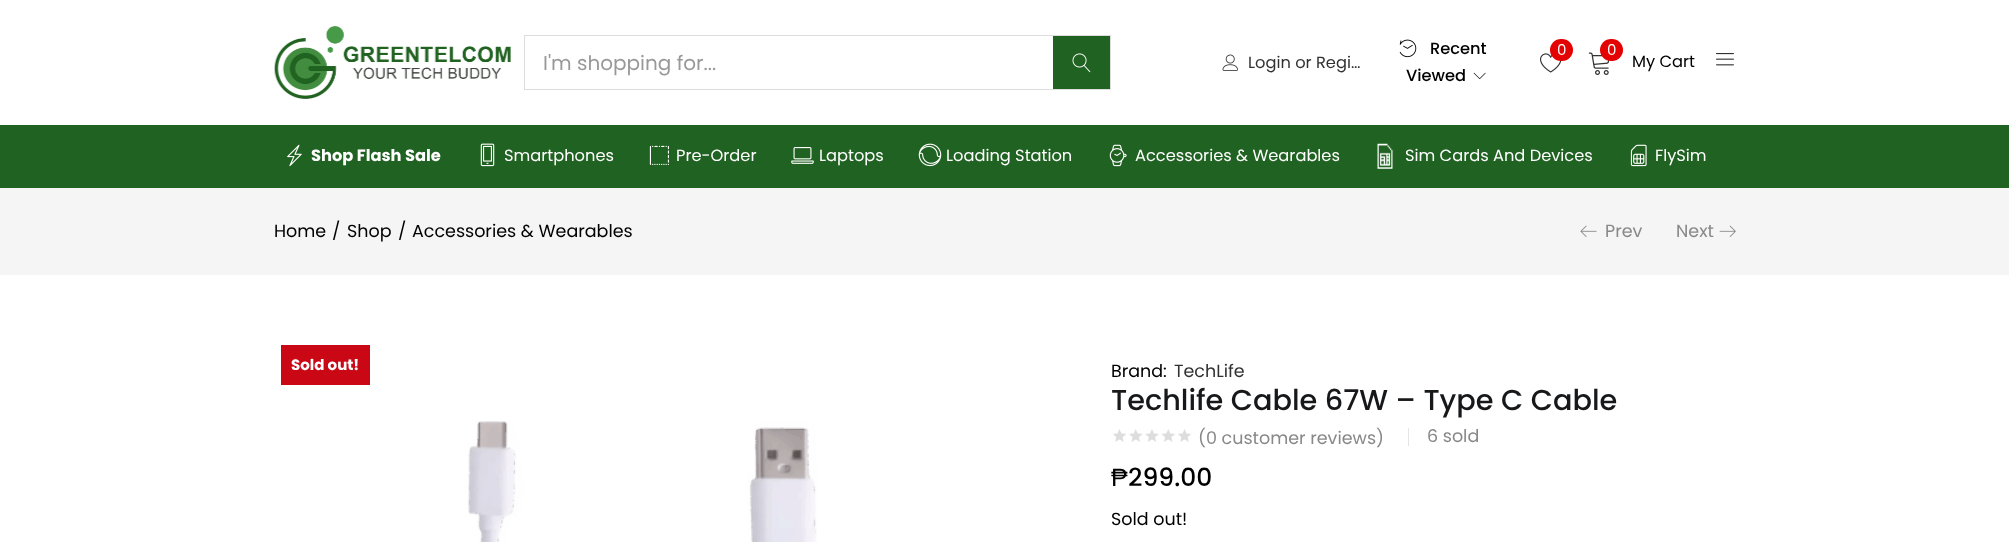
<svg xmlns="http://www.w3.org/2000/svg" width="2009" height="542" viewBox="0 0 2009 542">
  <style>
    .t1 { font: 20px Poppins; fill: #999; }
    .t2 { font: 16.25px Poppins; fill: #323232; }
    .t3 { font: 500 16.25px Poppins; fill: #000; }
    .t4 { font: 15px Poppins; fill: #fff; }
    .t5 { font: 16.25px Poppins; fill: #000; }
    .t6 { font: bold 16.25px Poppins; fill: #fff; }
    .t7 { font: 16.25px Poppins; fill: #fff; }
    .t8 { font: 17.5px Poppins; fill: #000; }
    .t9 { font: 17.5px Poppins; fill: #888; }
    .t10 { font: bold 15px Poppins; fill: #fff; }
    .t11 { font: 17.5px Poppins; fill: #323232; }
    .t12 { font: 500 28.75px Poppins; fill: #17181a; }
    .t13 { font: 25px Liberation Sans; fill: #000; }
    .t14 { font: 500 25px Poppins; fill: #000; }
  </style>
  <rect width="100%" height="100%" fill="#fff"/>
  <image x="274" y="26" width="237" height="73" href="images/1.png"/>
  <rect x="524.5" y="35.5" width="586" height="54" fill="none" stroke="#ddd"/>
  <text x="543" y="70" class="t1">I'm shopping for...</text>
  <rect x="1053" y="36" width="57" height="53" fill="#206221"/>
  <image x="1072" y="53" width="19" height="20" href="images/2.png"/>
  <image x="1222" y="54" width="16" height="17" href="images/3.png"/>
  <text x="1248" y="68" class="t2">Login or Regi…</text>
  <image x="1399" y="39" width="18" height="19" href="images/4.png"/>
  <text x="1430" y="54" class="t3">Recent</text>
  <text x="1406" y="81" class="t3">Viewed</text>
  <image x="1473" y="72" width="13" height="7" href="images/5.png"/>
  <image x="1540" y="53" width="22" height="20" href="images/6.png"/>
  <rect x="1550" y="39" width="23" height="22" rx="11" fill="#e40101"/>
  <text x="1557" y="55" class="t4">0</text>
  <image x="1588" y="52" width="22" height="23" href="images/7.png"/>
  <rect x="1600" y="39" width="23" height="22" rx="11" fill="#e40101"/>
  <text x="1607" y="55" class="t4">0</text>
  <text x="1632" y="67" class="t5">My Cart</text>
  <image x="1716" y="53" width="18" height="13" href="images/8.png"/>
  <rect x="0" y="125" width="2009" height="63" fill="#206221"/>
  <image x="287" y="144" width="15" height="23" href="images/9.png"/>
  <text x="311" y="161" class="t6">Shop Flash Sale</text>
  <image x="480" y="143" width="15" height="24" href="images/10.png"/>
  <text x="504" y="161" class="t7">Smartphones</text>
  <image x="649" y="145" width="20" height="20" href="images/11.png"/>
  <text x="676" y="161" class="t7">Pre-Order</text>
  <image x="791" y="147" width="23" height="17" href="images/12.png"/>
  <text x="819" y="161" class="t7">Laptops</text>
  <image x="918" y="143" width="24" height="24" href="images/13.png"/>
  <text x="946" y="161" class="t7">Loading Station</text>
  <image x="1109" y="144" width="18" height="23" href="images/14.png"/>
  <text x="1135" y="161" class="t7">Accessories &amp; Wearables</text>
  <image x="1375" y="143" width="20" height="26" href="images/15.png"/>
  <text x="1405" y="161" class="t7">Sim Cards And Devices</text>
  <image x="1630" y="144" width="17" height="23" href="images/16.png"/>
  <text x="1655" y="161" class="t7">FlySim</text>
  <rect x="0" y="188" width="2009" height="87" fill="#f5f5f5"/>
  <text x="274" y="237" class="t8">Home</text>
  <text x="332" y="237" class="t8">/</text>
  <text x="347" y="237" class="t8">Shop</text>
  <text x="398" y="237" class="t8">/</text>
  <text x="412" y="237" class="t8">Accessories &amp; Wearables</text>
  <image x="1580" y="225" width="17" height="12" href="images/17.png"/>
  <text x="1605" y="237" class="t9">Prev</text>
  <text x="1676" y="237" class="t9">Next</text>
  <image x="1719" y="225" width="17" height="12" href="images/18.png"/>
  <rect x="281" y="345" width="89" height="40" fill="#ca0815"/>
  <text x="291" y="370" class="t10">Sold out!</text>
  <image x="467" y="421" width="350" height="121" href="images/19.png"/>
  <text x="1111" y="377" class="t8">Brand:</text>
  <text x="1174" y="377" class="t11">TechLife</text>
  <text x="1111" y="410" class="t12">Techlife Cable 67W – Type C Cable</text>
  <image x="1113" y="429" width="78" height="13" href="images/20.png"/>
  <text x="1198" y="444" class="t9">(0 customer reviews)</text>
  <rect x="1408" y="428" width="1" height="18" fill="#e5e5e5"/>
  <text x="1427" y="442" class="t9">6 sold</text>
  <text x="1111" y="486" class="t13">₱</text>
  <text x="1128" y="486" class="t14">299.00</text>
  <text x="1111" y="525" class="t8">Sold out!</text>
</svg>
